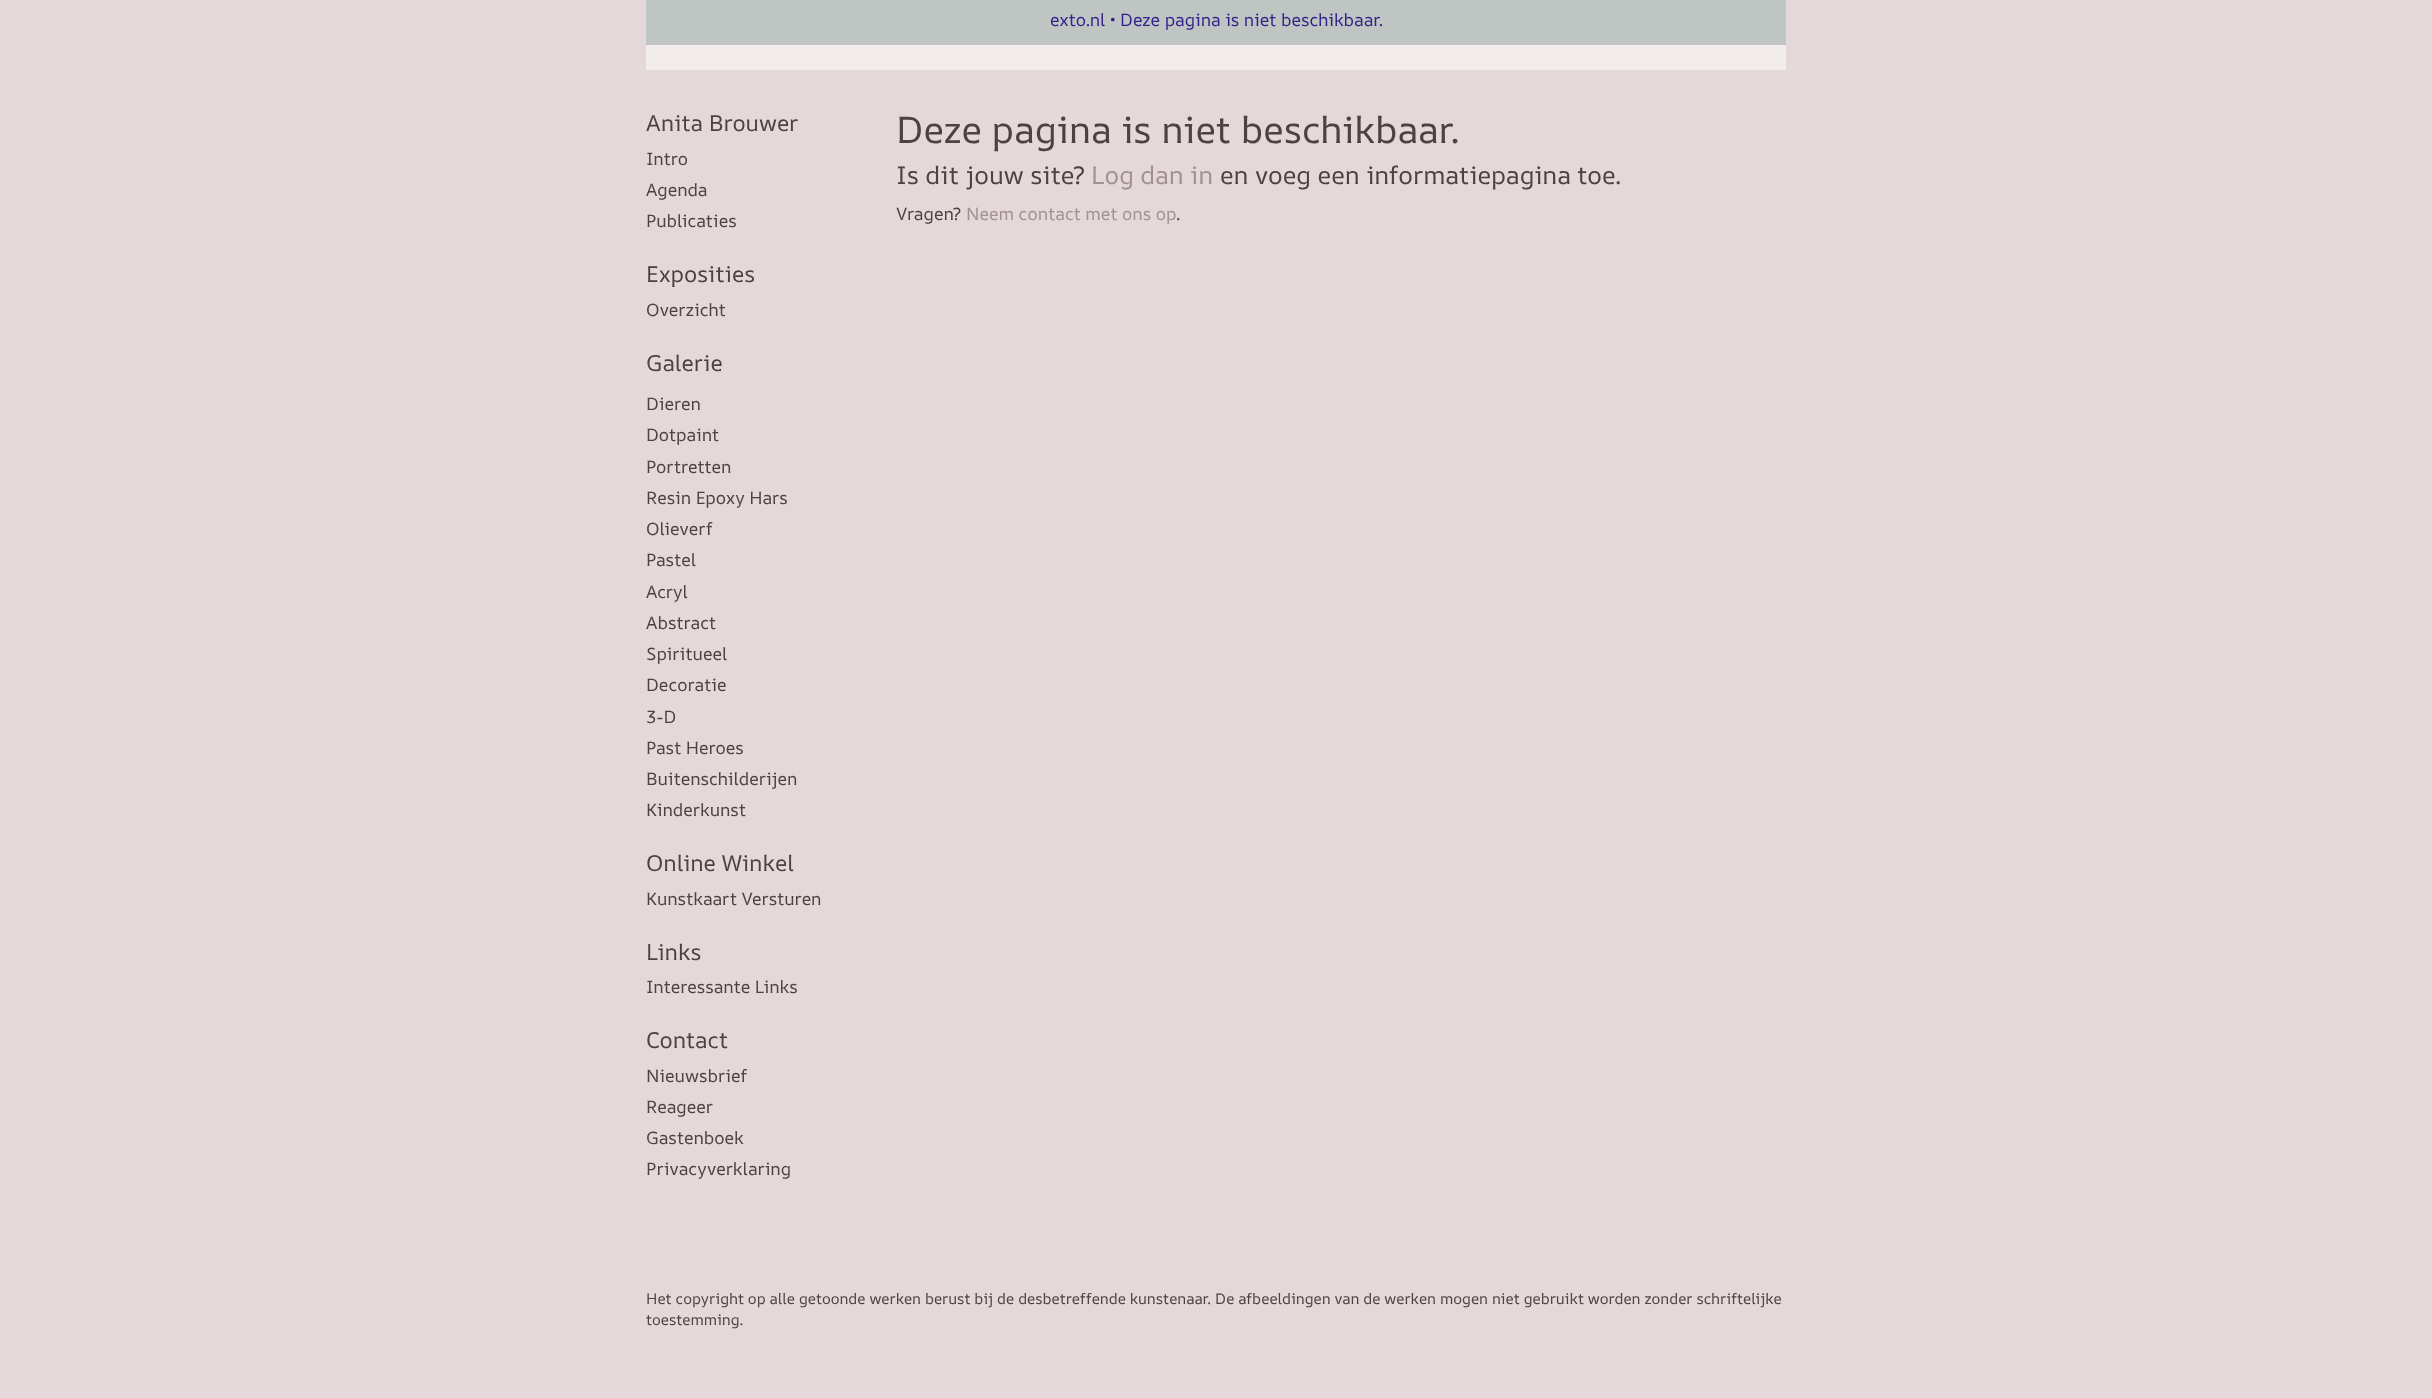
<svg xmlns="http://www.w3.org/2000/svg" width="2432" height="1398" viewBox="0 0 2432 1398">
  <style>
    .t1 { font: 17.5px AR One Sans; fill: #361e8a; }
    .t2 { font: 22.5px AR One Sans; fill: #4e4141; }
    .t3 { font: 17.5px AR One Sans; fill: #4e4141; }
    .t4 { font: 37.5px AR One Sans; fill: #4e4141; }
    .t5 { font: 25px AR One Sans; fill: #4e4141; }
    .t6 { font: 25px AR One Sans; fill: #a19191; }
    .t7 { font: 17.5px AR One Sans; fill: #a19191; }
    .t8 { font: 15px AR One Sans; fill: #4e4141; }
  </style>
  <rect width="100%" height="100%" fill="#e4d8db"/>
  <rect x="646" y="0" width="1140" height="45" fill="#bec5c2"/>
  <text x="1050" y="26" class="t1">exto.nl • Deze pagina is niet beschikbaar.</text>
  <rect x="646" y="45" width="1140" height="25" fill="#f3ecec"/>
  <text x="646" y="131" class="t2">Anita Brouwer</text>
  <text x="646" y="165" class="t3">Intro</text>
  <text x="646" y="196" class="t3">Agenda</text>
  <text x="646" y="227" class="t3">Publicaties</text>
  <text x="646" y="282" class="t2">Exposities</text>
  <text x="646" y="316" class="t3">Overzicht</text>
  <text x="646" y="371" class="t2">Galerie</text>
  <text x="646" y="410" class="t3">Dieren</text>
  <text x="646" y="441" class="t3">Dotpaint</text>
  <text x="646" y="473" class="t3">Portretten</text>
  <text x="646" y="504" class="t3">Resin Epoxy Hars</text>
  <text x="646" y="535" class="t3">Olieverf</text>
  <text x="646" y="566" class="t3">Pastel</text>
  <text x="646" y="598" class="t3">Acryl</text>
  <text x="646" y="629" class="t3">Abstract</text>
  <text x="646" y="660" class="t3">Spiritueel</text>
  <text x="646" y="691" class="t3">Decoratie</text>
  <text x="646" y="723" class="t3">3-D</text>
  <text x="646" y="754" class="t3">Past Heroes</text>
  <text x="646" y="785" class="t3">Buitenschilderijen</text>
  <text x="646" y="816" class="t3">Kinderkunst</text>
  <text x="646" y="871" class="t2">Online Winkel</text>
  <text x="646" y="905" class="t3">Kunstkaart Versturen</text>
  <text x="646" y="960" class="t2">Links</text>
  <text x="646" y="993" class="t3">Interessante Links</text>
  <text x="646" y="1048" class="t2">Contact</text>
  <text x="646" y="1082" class="t3">Nieuwsbrief</text>
  <text x="646" y="1113" class="t3">Reageer</text>
  <text x="646" y="1144" class="t3">Gastenboek</text>
  <text x="646" y="1175" class="t3">Privacyverklaring</text>
  <text x="896" y="143" class="t4">Deze pagina is niet beschikbaar.</text>
  <text x="896" y="184" class="t5">Is dit jouw site?</text>
  <text x="1091" y="184" class="t6">Log dan in</text>
  <text x="1220" y="184" class="t5">en voeg een informatiepagina toe.</text>
  <text x="896" y="220" class="t3">Vragen?</text>
  <text x="966" y="220" class="t7">Neem contact met ons op</text>
  <text x="1176" y="220" class="t3">.</text>
  <text x="646" y="1304" class="t8">Het copyright op alle getoonde werken berust bij de desbetreffende kunstenaar. De afbeeldingen van de werken mogen niet gebruikt worden zonder schriftelijke</text>
  <text x="646" y="1325" class="t8">toestemming.</text>
</svg>
